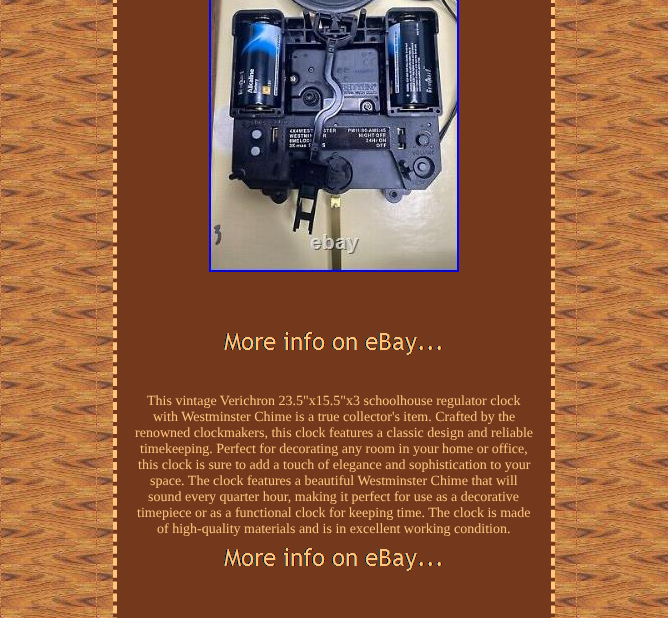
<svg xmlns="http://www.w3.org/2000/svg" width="668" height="618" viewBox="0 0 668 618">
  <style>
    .t1 { font: 14px Liberation Serif; fill: #ffc57f; }
  </style>
  <rect width="100%" height="100%" fill="#fff"/>
  <image x="0" y="0" width="668" height="618" href="images/1.png"/>
  <rect x="113" y="0" width="442" height="618" fill="#74381c"/>
  <path d="M553-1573V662" fill="none" stroke="#ffc57f" stroke-width="4" stroke-dasharray="8 3.97"/>
  <path d="M115-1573V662" fill="none" stroke="#ffc57f" stroke-width="4" stroke-dasharray="8 3.97"/>
  <image x="209" y="0" width="250" height="272" href="images/2.png"/>
  <image x="224" y="332" width="218" height="23" href="images/3.png"/>
  <text x="147" y="405" class="t1">This vintage Verichron 23.5"x15.5"x3 schoolhouse regulator clock</text>
  <text x="153" y="421" class="t1">with Westminster Chime is a true collector's item. Crafted by the</text>
  <text x="135" y="437" class="t1">renowned clockmakers, this clock features a classic design and reliable</text>
  <text x="140" y="453" class="t1">timekeeping. Perfect for decorating any room in your home or office,</text>
  <text x="138" y="469" class="t1">this clock is sure to add a touch of elegance and sophistication to your</text>
  <text x="150" y="485" class="t1">space. The clock features a beautiful Westminster Chime that will</text>
  <text x="148" y="501" class="t1">sound every quarter hour, making it perfect for use as a decorative</text>
  <text x="137" y="517" class="t1">timepiece or as a functional clock for keeping time. The clock is made</text>
  <text x="157" y="533" class="t1">of high-quality materials and is in excellent working condition.</text>
  <image x="224" y="548" width="218" height="23" href="images/3.png"/>
</svg>
